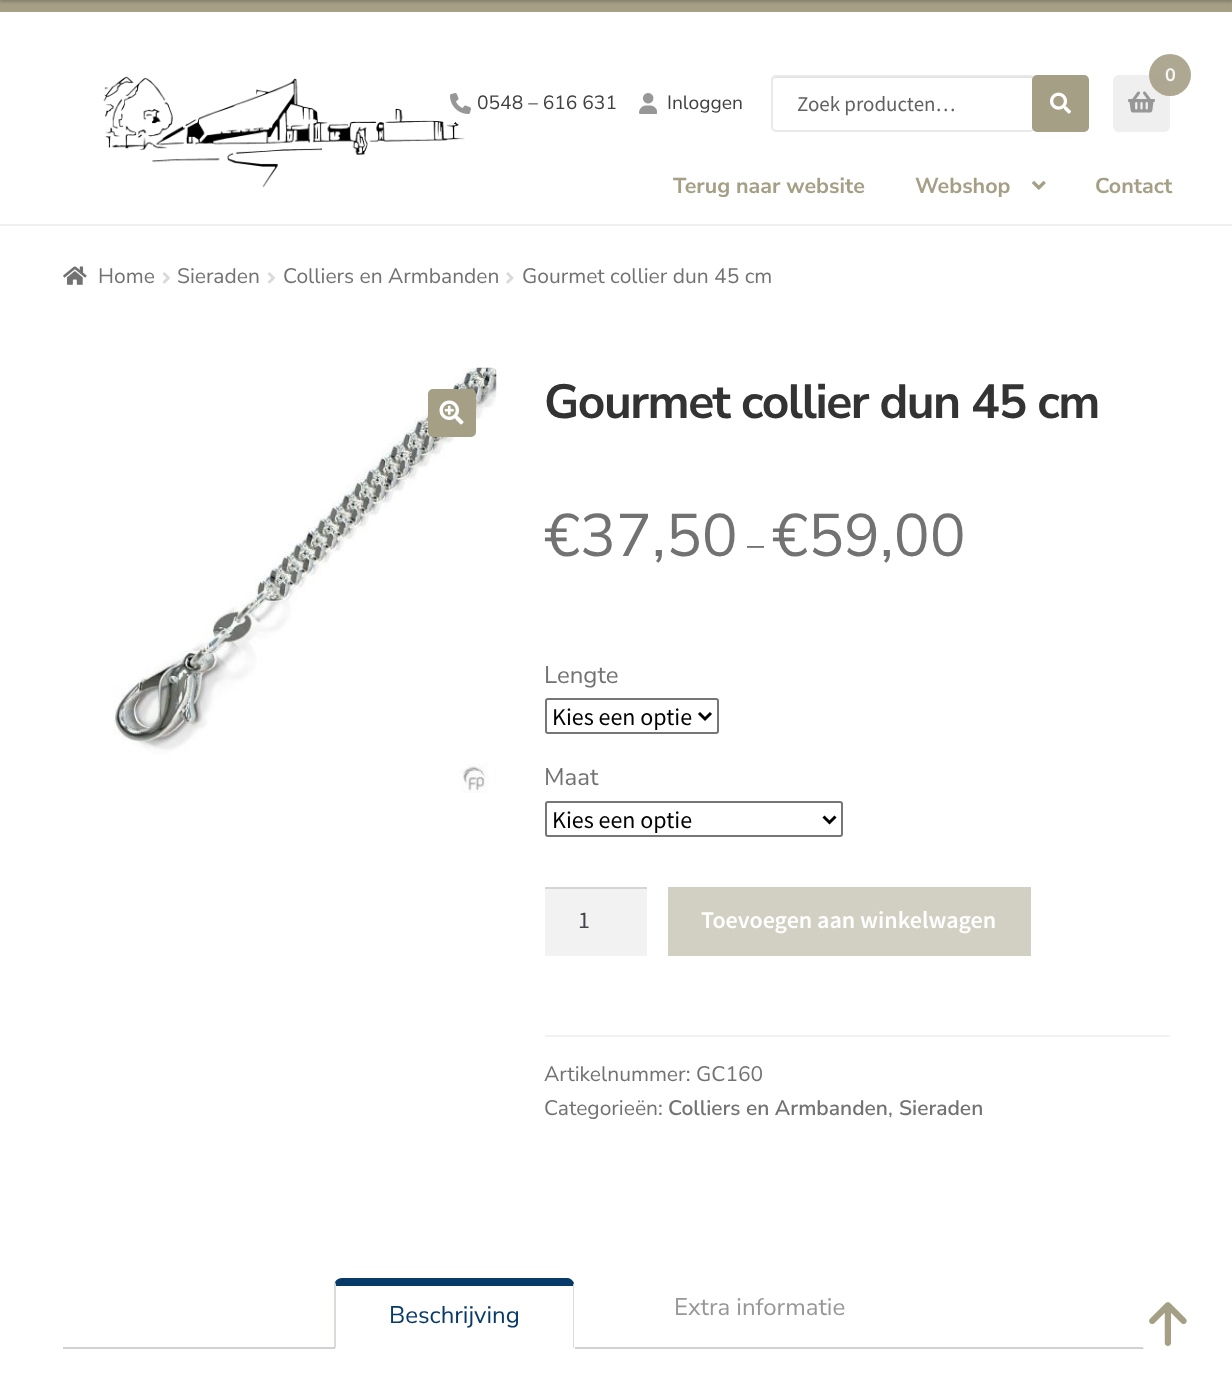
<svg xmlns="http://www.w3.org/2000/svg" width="1232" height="1389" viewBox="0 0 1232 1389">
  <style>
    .t1 { font: 19.25px Nunito Sans; fill: #404040; }
    .t2 { font: 21px Source Sans Pro; fill: #616161; }
    .t3 { font: bold 18px Nunito Sans; fill: #f7f6f4; }
    .t4 { font: bold 21.5px Nunito Sans; fill: #a59f86; }
    .t5 { font: 21px Nunito Sans; fill: #727272; }
    .t6 { font: bold 48px Nunito Sans; letter-spacing: -1.5px; fill: #333; }
    .t7 { font: 60px Nunito Sans; fill: #727272; }
    .t8 { font: 34px Nunito Sans; fill: #727272; }
    .t9 { font: 24px Nunito Sans; fill: #727272; }
    .t10 { font: 24px Source Sans Pro; fill: #000; }
    .t11 { font: 24px Source Sans Pro; fill: #43454b; }
    .t12 { font: 600 24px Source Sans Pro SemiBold; fill: #fff; }
    .t13 { font: 600 21px Nunito Sans; fill: #727272; }
    .t14 { font: 24px Nunito Sans; fill: #083a69; }
    .t15 { font: 24px Nunito Sans; fill: #979797; }
  </style>
  <rect width="100%" height="100%" fill="#fff"/>
  <rect x="0" y="0" width="1232" height="12" fill="#a59f86"/>
  <rect x="0" y="-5" width="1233" height="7" fill="#00000033" filter="blur(1.5px)"/>
  <rect x="0" y="224" width="1232" height="2" fill="#f0f0f0"/>
  <image x="103" y="76" width="362" height="112" href="images/1.png"/>
  <image x="450" y="93" width="21" height="21" href="images/2.png"/>
  <text x="477" y="109" class="t1">0548 – 616 631</text>
  <image x="639" y="93" width="18" height="21" href="images/3.png"/>
  <text x="667" y="109" class="t1">Inloggen</text>
  <path d="M776 78H1030C1032 78 1034 79 1034 81V80C1034 78 1033 77 1031 77H776C775 77 774 78 773 79Z" fill="#dfdfdf"/>
  <rect x="772" y="76" width="262" height="55" rx="4" fill="none" stroke="#e9e9e9" stroke-width="2"/>
  <text x="797" y="111" class="t2">Zoek producten…</text>
  <rect x="1032" y="75" width="57" height="57" rx="5" fill="#a59f86"/>
  <image x="1050" y="92" width="21" height="22" href="images/4.png"/>
  <rect x="1113" y="75" width="57" height="57" rx="6" fill="#efefef"/>
  <image x="1128" y="91" width="27" height="22" href="images/5.png"/>
  <circle cx="1170" cy="75" r="21" fill="#a59f86e6"/>
  <text x="1165" y="81" class="t3">0</text>
  <text x="673" y="193" class="t4">Terug naar website</text>
  <text x="915" y="193" class="t4">Webshop</text>
  <image x="1032" y="181" width="14" height="9" href="images/6.png"/>
  <text x="1095" y="193" class="t4">Contact</text>
  <image x="63" y="266" width="24" height="19" href="images/7.png"/>
  <text x="98" y="283" class="t5">Home</text>
  <image x="162" y="272" width="8" height="12" href="images/8.png"/>
  <text x="177" y="283" class="t5">Sieraden</text>
  <image x="267" y="272" width="8" height="12" href="images/8.png"/>
  <text x="283" y="283" class="t5">Colliers en Armbanden</text>
  <image x="506" y="272" width="8" height="12" href="images/9.png"/>
  <text x="522" y="283" class="t5">Gourmet collier dun 45 cm</text>
  <image x="113" y="367" width="384" height="426" href="images/10.png"/>
  <rect x="428" y="389" width="48" height="48" rx="5" fill="#a59f86"/>
  <image x="439" y="400" width="25" height="25" href="images/11.png"/>
  <text x="544" y="418" class="t6">Gourmet collier dun 45 cm</text>
  <text x="544" y="556" class="t7">€37,50</text>
  <text x="747" y="556" class="t8">–</text>
  <text x="772" y="556" class="t7">€59,00</text>
  <text x="544" y="683" class="t9">Lengte</text>
  <rect x="546" y="699" width="172" height="34" rx="2" fill="none" stroke="#767676" stroke-width="2"/>
  <path d="M699 713L705 719L711 713" fill="none" stroke="#000" stroke-width="3"/>
  <text x="552" y="725" class="t10">Kies een optie</text>
  <text x="544" y="785" class="t9">Maat</text>
  <rect x="546" y="802" width="296" height="34" rx="2" fill="none" stroke="#767676" stroke-width="2"/>
  <path d="M823.5 816.5L829.5 822.5L835.5 816.5" fill="none" stroke="#000" stroke-width="3"/>
  <text x="552" y="828" class="t10">Kies een optie</text>
  <rect x="545" y="889" width="102" height="67" fill="#f2f2f2"/>
  <rect x="545" y="887" width="102" height="2" fill="#d4d4d4"/>
  <text x="578" y="928" class="t11">1</text>
  <rect x="668" y="887" width="363" height="69" fill="#d2cfc3"/>
  <text x="701" y="928" class="t12">Toevoegen aan winkelwagen</text>
  <rect x="545" y="1035" width="625" height="2" fill="#f2f2f2"/>
  <text x="544" y="1081" class="t5">Artikelnummer: GC160</text>
  <text x="544" y="1115" class="t5">Categorieën:</text>
  <text x="668" y="1115" class="t13">Colliers en Armbanden</text>
  <text x="888" y="1115" class="t5">,</text>
  <text x="899" y="1115" class="t13">Sieraden</text>
  <path d="M342 1278C339 1278 337 1279 335 1282L336 1286H573L574 1283C573 1280 570 1278 567 1278Z" fill="#083a69"/>
  <path d="M574 1283L573 1286V1348H574V1286Z" fill="#dddbd5"/>
  <path d="M334 1283L335 1282L336 1286V1348H334Z" fill="#dddbd5"/>
  <text x="389" y="1323" class="t14">Beschrijving</text>
  <rect x="63" y="1347" width="272" height="2" fill="#d1d1d1"/>
  <rect x="575" y="1347" width="570" height="2" fill="#d1d1d1"/>
  <text x="674" y="1315" class="t15">Extra informatie</text>
  <circle cx="1168.5" cy="1324.5" r="34.5" fill="#fff"/>
  <image x="1149" y="1302" width="38" height="44" href="images/12.png"/>
</svg>
